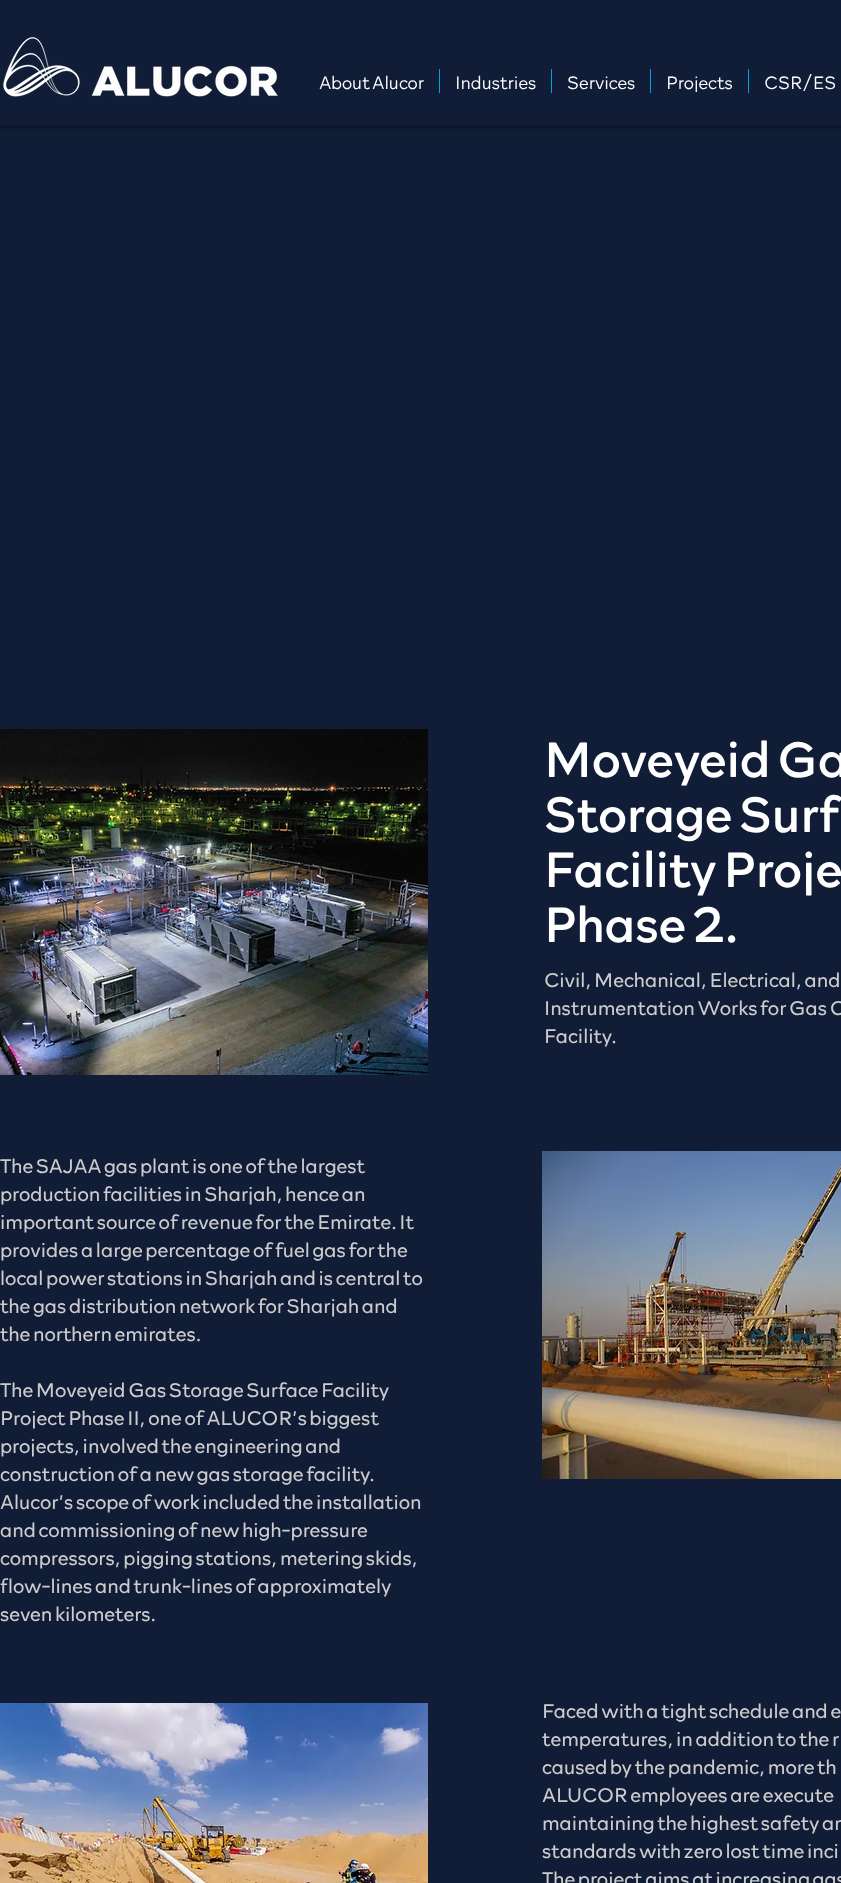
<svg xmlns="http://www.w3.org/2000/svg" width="841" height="1883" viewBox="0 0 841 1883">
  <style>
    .t1 { font: 200 18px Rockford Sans; fill: #fff; }
    .t2 { font: 50px Rockford Sans; fill: #fff; }
    .t3 { font: 300 20px Rockford Sans; fill: #ccc; }
  </style>
  <defs>
    <clipPath id="clip1"><rect x="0" y="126" width="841" height="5"/></clipPath>
  </defs>
  <rect width="100%" height="100%" fill="#111d36"/>
  <g clip-path="url(#clip1)">
    <rect x="0" y="0" width="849" height="126" fill="#000000b3" filter="blur(2.5px)"/>
  </g>
  <image x="3" y="37" width="275" height="60" href="images/1.png"/>
  <text x="319" y="89" class="t1">About Alucor</text>
  <rect x="439" y="69" width="1" height="24" fill="#00a3e0"/>
  <text x="455" y="89" class="t1">Industries</text>
  <rect x="551" y="69" width="1" height="24" fill="#00a3e0"/>
  <text x="567" y="89" class="t1">Services</text>
  <rect x="650" y="69" width="1" height="24" fill="#00a3e0"/>
  <text x="666" y="89" class="t1">Projects</text>
  <rect x="748" y="69" width="1" height="24" fill="#00a3e0"/>
  <text x="764" y="89" class="t1">CSR/ES</text>
  <image x="0" y="729" width="428" height="346" href="images/2.png"/>
  <text x="544" y="777" class="t2">Moveyeid Ga</text>
  <text x="544" y="832" class="t2">Storage Surf</text>
  <text x="544" y="887" class="t2">Facility Proje</text>
  <text x="544" y="942" class="t2">Phase 2.</text>
  <text x="544" y="987" class="t3">Civil, Mechanical, Electrical, and</text>
  <text x="544" y="1015" class="t3">Instrumentation Works for Gas C</text>
  <text x="544" y="1043" class="t3">Facility.</text>
  <text x="0" y="1173" class="t3">The SAJAA gas plant is one of the largest</text>
  <text x="0" y="1201" class="t3">production facilities in Sharjah, hence an</text>
  <text x="0" y="1229" class="t3">important source of revenue for the Emirate. It</text>
  <text x="0" y="1257" class="t3">provides a large percentage of fuel gas for the</text>
  <text x="0" y="1285" class="t3">local power stations in Sharjah and is central to</text>
  <text x="0" y="1313" class="t3">the gas distribution network for Sharjah and</text>
  <text x="0" y="1341" class="t3">the northern emirates.</text>
  <text x="0" y="1397" class="t3">The Moveyeid Gas Storage Surface Facility</text>
  <text x="0" y="1425" class="t3">Project Phase II, one of ALUCOR’s biggest</text>
  <text x="0" y="1453" class="t3">projects, involved the engineering and</text>
  <text x="0" y="1481" class="t3">construction of a new gas storage facility.</text>
  <text x="0" y="1509" class="t3">Alucor’s scope of work included the installation</text>
  <text x="0" y="1537" class="t3">and commissioning of new high-pressure</text>
  <text x="0" y="1565" class="t3">compressors, pigging stations, metering skids,</text>
  <text x="0" y="1593" class="t3">flow-lines and trunk-lines of approximately</text>
  <text x="0" y="1621" class="t3">seven kilometers.</text>
  <image x="542" y="1151" width="299" height="328" href="images/3.png"/>
  <image x="0" y="1703" width="428" height="180" href="images/4.png"/>
  <text x="542" y="1718" class="t3">Faced with a tight schedule and e</text>
  <text x="542" y="1746" class="t3">temperatures, in addition to the r</text>
  <text x="542" y="1774" class="t3">caused by the pandemic, more th</text>
  <text x="542" y="1802" class="t3">ALUCOR employees are execute</text>
  <text x="542" y="1830" class="t3">maintaining the highest safety an</text>
  <text x="542" y="1858" class="t3">standards with zero lost time inci</text>
  <text x="542" y="1886" class="t3">The project aims at increasing gas</text>
</svg>
